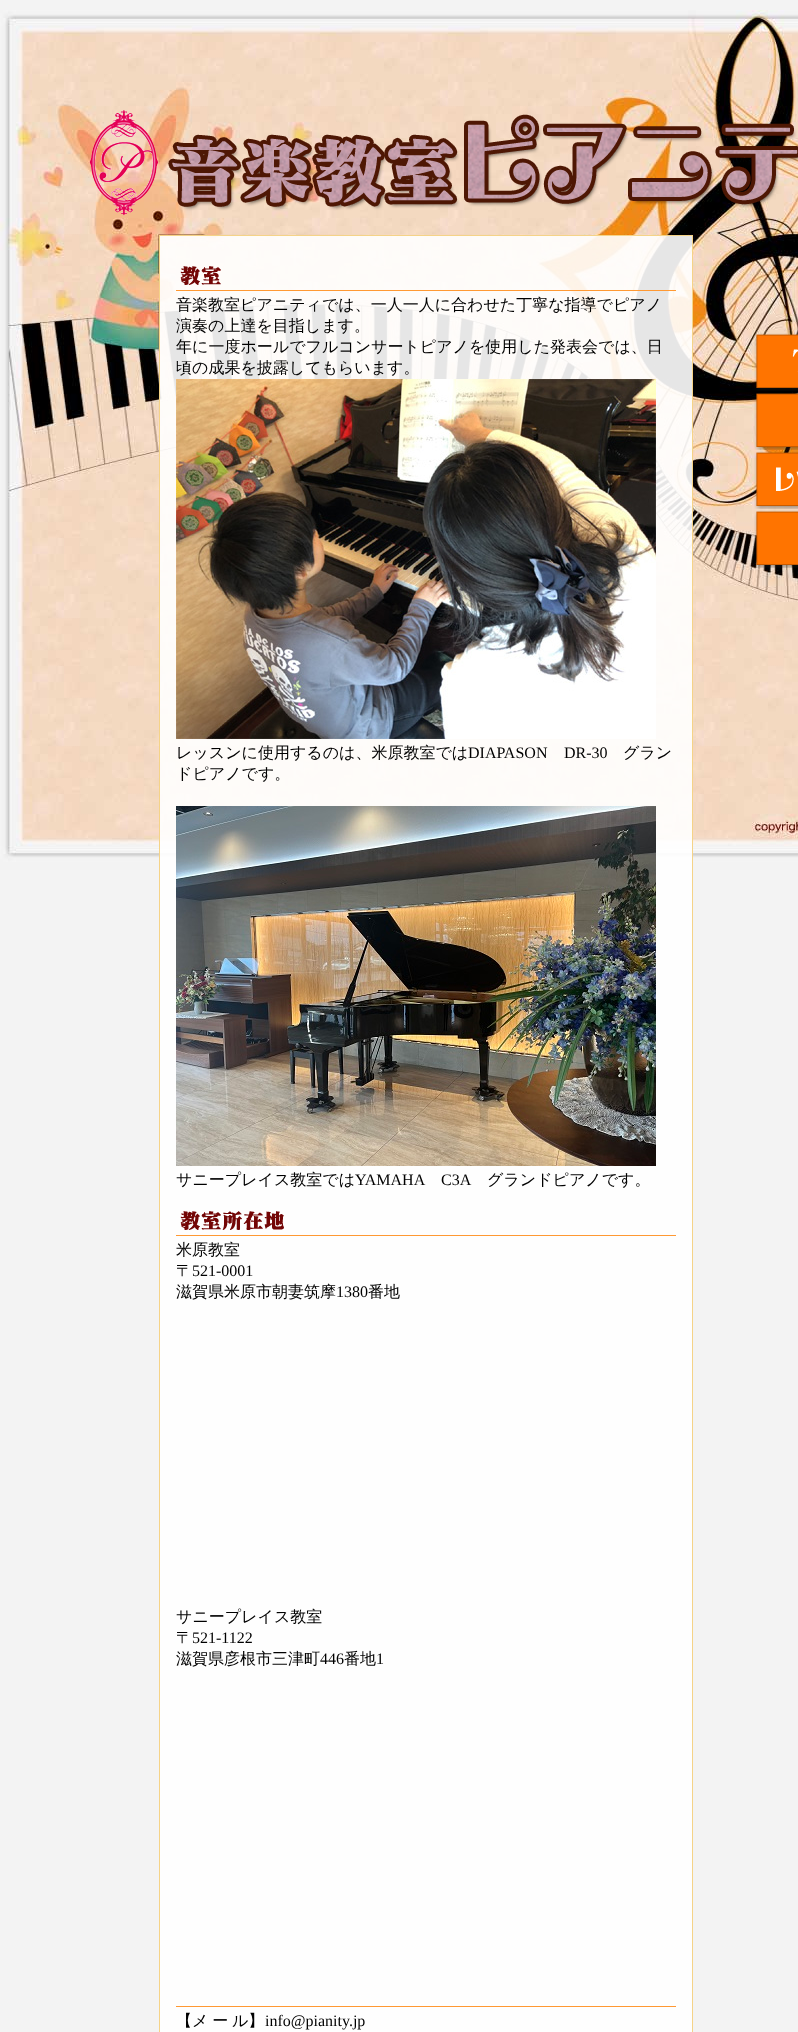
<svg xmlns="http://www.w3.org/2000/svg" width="798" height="2032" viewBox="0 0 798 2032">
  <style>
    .t1 { font: 500 16px WenQuanYi Zen Hei; fill: #000; }
    .t2 { font: 16px Liberation Serif; fill: #000; }
  </style>
  <rect width="100%" height="100%" fill="#f3f3f3"/>
  <image x="0" y="10" width="798" height="222" href="images/1.png"/>
  <image x="89" y="110" width="709" height="106" href="images/2.png"/>
  <image x="0" y="232" width="798" height="576" href="images/3.png"/>
  <image x="0" y="808" width="798" height="54" href="images/12.png"/>
  <rect x="159.5" y="235.5" width="533" height="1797" fill="#ffffffe6" stroke="#f5d387"/>
  <image x="180" y="266" width="41" height="19" href="images/4.png"/>
  <rect x="176" y="290" width="500" height="1" fill="#f93"/>
  <text x="176" y="310" class="t1">音楽教室ピアニティでは、一人一人に合わせた丁寧な指導でピアノ</text>
  <text x="176" y="331" class="t1">演奏の上達を目指します。</text>
  <text x="176" y="352" class="t1">年に一度ホールでフルコンサートピアノを使用した発表会では、日</text>
  <text x="176" y="373" class="t1">頃の成果を披露してもらいます。</text>
  <image x="176" y="379" width="480" height="360" href="images/5.png"/>
  <text x="176" y="758" class="t1">レッスンに使用するのは、米原教室では</text>
  <text x="468" y="758" class="t2">DIAPASON</text>
  <text x="564" y="758" class="t2">DR-30</text>
  <text x="623" y="758" class="t1">グラン</text>
  <text x="176" y="779" class="t1">ドピアノです。</text>
  <image x="176" y="806" width="480" height="360" href="images/6.png"/>
  <text x="176" y="1185" class="t1">サニープレイス教室では</text>
  <text x="355" y="1185" class="t2">YAMAHA</text>
  <text x="441" y="1185" class="t2">C3A</text>
  <text x="487" y="1185" class="t1">グランドピアノです。</text>
  <image x="180" y="1211" width="104" height="19" href="images/7.png"/>
  <rect x="176" y="1235" width="500" height="1" fill="#f93"/>
  <text x="176" y="1255" class="t1">米原教室</text>
  <text x="176" y="1276" class="t1">〒</text>
  <text x="192" y="1276" class="t2">521-0001</text>
  <text x="176" y="1297" class="t1">滋賀県米原市朝妻筑摩</text>
  <text x="336" y="1297" class="t2">1380</text>
  <text x="368" y="1297" class="t1">番地</text>
  <text x="176" y="1622" class="t1">サニープレイス教室</text>
  <text x="176" y="1643" class="t1">〒</text>
  <text x="192" y="1643" class="t2">521-1122</text>
  <text x="176" y="1664" class="t1">滋賀県彦根市三津町</text>
  <text x="320" y="1664" class="t2">446</text>
  <text x="344" y="1664" class="t1">番地</text>
  <text x="376" y="1664" class="t2">1</text>
  <rect x="176" y="2006" width="500" height="1" fill="#f93"/>
  <text x="176" y="2026" word-spacing="-1" class="t1">【メ ー ル】</text>
  <text x="265" y="2026" class="t2">info@pianity.jp</text>
  <image x="754" y="333" width="44" height="58" href="images/8.png"/>
  <image x="754" y="393" width="44" height="57" href="images/9.png"/>
  <image x="754" y="451" width="44" height="58" href="images/10.png"/>
  <image x="754" y="510" width="44" height="58" href="images/11.png"/>
</svg>
